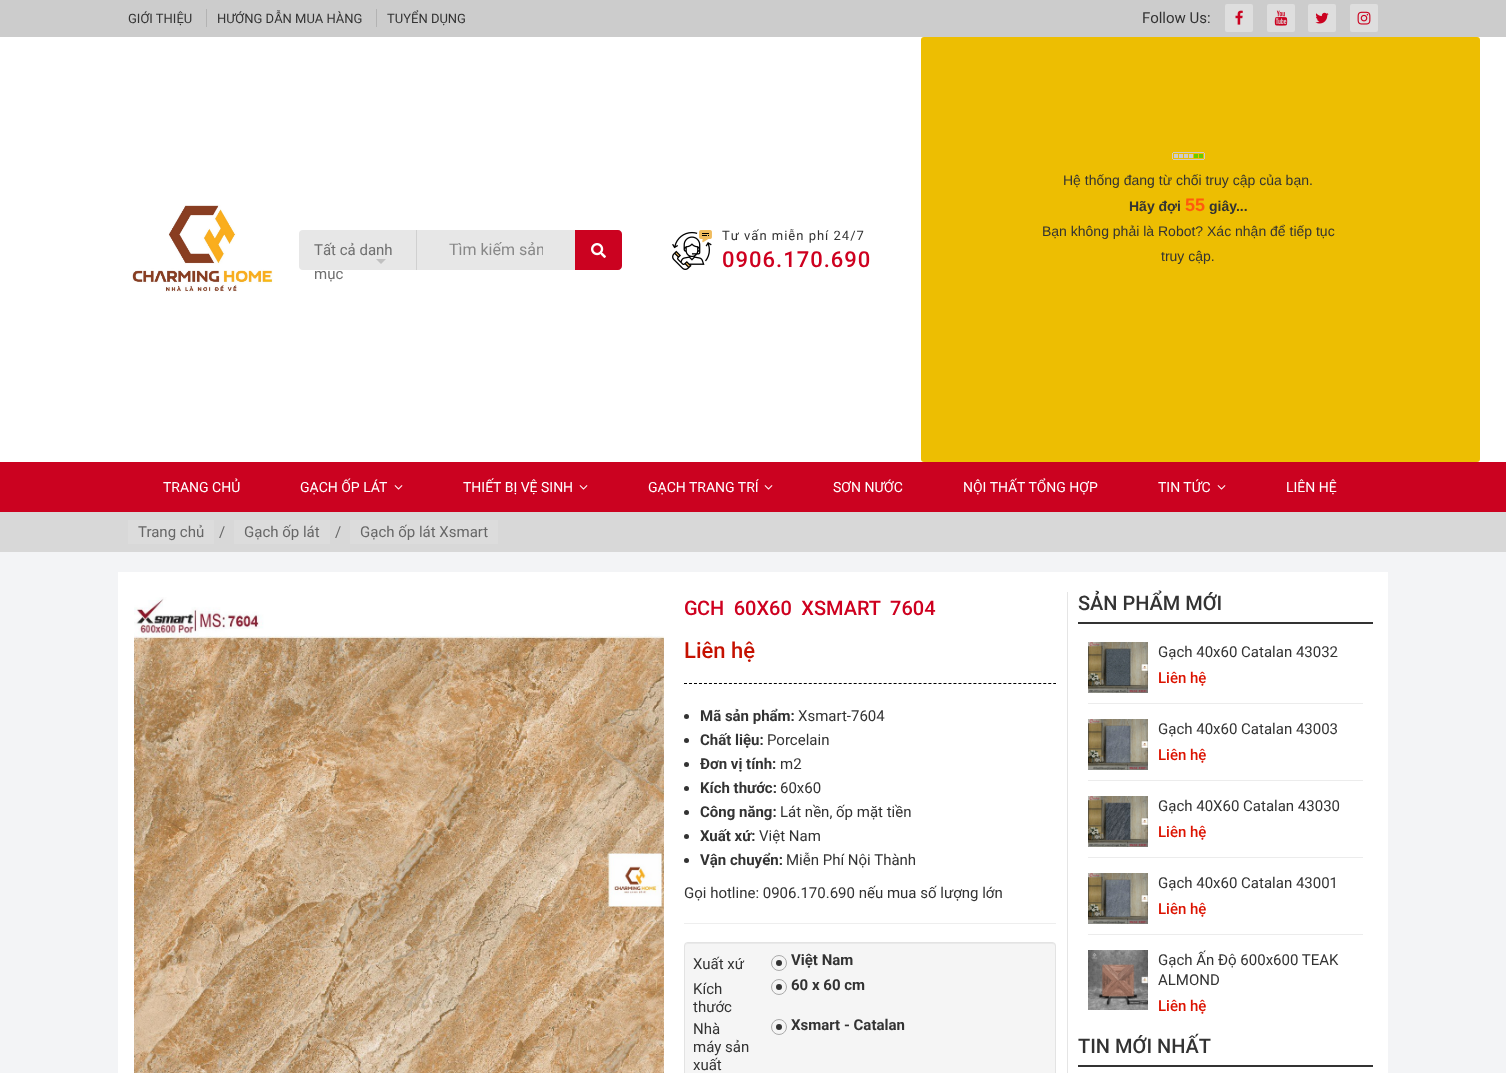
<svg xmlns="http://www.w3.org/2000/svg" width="1506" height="1073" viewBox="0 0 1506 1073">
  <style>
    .t1 { font: 13px Roboto; fill: #333; }
    .t2 { font: 15px Roboto; fill: #333; }
    .t3 { font: 15px Roboto; fill: #6f6f6f; }
    .t4 { font: 16px Roboto; fill: #888; }
    .t5 { font: 13px Roboto; letter-spacing: 1px; fill: #333; }
    .t6 { font: 500 22px Roboto; letter-spacing: 1px; fill: #ce001f; }
    .t7 { font: 14px Liberation Sans; fill: #333; }
    .t8 { font: bold 14px Liberation Sans; fill: #333; }
    .t9 { font: bold 18px Liberation Sans; fill: #ff5b0d; }
    .t10 { font: 14px Roboto; fill: #fff; }
    .t11 { font: 15px Roboto; fill: #676767; }
    .t12 { font: 500 20px Roboto; fill: #ce001f; }
    .t13 { font: 500 22px Roboto; fill: #c51100; }
    .t14 { font: bold 15px Roboto; fill: #333; }
    .t15 { font: 500 20px Roboto; fill: #333; }
    .t16 { font: 500 15px Roboto; fill: #dc1300; }
  </style>
  <defs>
    <clipPath id="clip1"><rect x="449" y="240" width="94" height="19"/></clipPath>
  </defs>
  <rect width="100%" height="100%" fill="#f3f4f6"/>
  <rect x="0" y="0" width="1506" height="37" fill="#ccc"/>
  <text x="128" y="23" class="t1">GIỚI THIỆU</text>
  <rect x="206" y="9" width="1" height="18" fill="#b3b3b3"/>
  <text x="217" y="23" class="t1">HƯỚNG DẪN MUA HÀNG</text>
  <rect x="376" y="9" width="1" height="18" fill="#b3b3b3"/>
  <text x="387" y="23" class="t1">TUYỂN DỤNG</text>
  <text x="1142" y="23" class="t2">Follow Us:</text>
  <rect x="1225" y="4" width="28" height="28" rx="2" fill="#dedede"/>
  <image x="1235" y="10" width="8" height="15" href="images/1.png"/>
  <rect x="1267" y="4" width="28" height="28" rx="2" fill="#dedede"/>
  <image x="1274" y="10" width="14" height="16" href="images/2.png"/>
  <rect x="1308" y="4" width="28" height="28" rx="2" fill="#dedede"/>
  <image x="1315" y="12" width="14" height="12" href="images/3.png"/>
  <rect x="1350" y="4" width="28" height="28" rx="2" fill="#dedede"/>
  <image x="1357" y="11" width="14" height="14" href="images/4.png"/>
  <rect x="0" y="37" width="1506" height="425" fill="#fff"/>
  <image x="132" y="205" width="141" height="87" href="images/5.png"/>
  <rect x="299" y="230" width="323" height="40" rx="4" fill="#e7e7e7"/>
  <rect x="416" y="230" width="1" height="40" fill="#d0d0d0"/>
  <text x="314" y="255" class="t3">Tất cả danh</text>
  <text x="314" y="279" class="t3">mục</text>
  <path d="M376 259H386L381 264Z" fill="#c0c0c0"/>
  <g clip-path="url(#clip1)">
    <text x="449" y="255" class="t4">Tìm kiếm sản</text>
  </g>
  <path d="M575 230H618C620 230 622 232 622 234V266C622 268 620 270 618 270H575Z" fill="#cb0220"/>
  <image x="591" y="243" width="15" height="15" href="images/6.png"/>
  <image x="672" y="230" width="40" height="40" href="images/7.png"/>
  <text x="722" y="240" class="t5">Tư vấn miễn phí 24/7</text>
  <text x="722" y="267" class="t6">0906.170.690</text>
  <rect x="921" y="37" width="559" height="425" rx="3" fill="#edbe02"/>
  <image x="1172" y="152" width="33" height="8" href="images/8.png"/>
  <text x="1063" y="185" class="t7">Hệ thống đang từ chối truy cập của bạn.</text>
  <text x="1129" y="211" class="t8">Hãy đợi</text>
  <text x="1185" y="211" class="t9">55</text>
  <text x="1209" y="211" class="t8">giây...</text>
  <text x="1042" y="236" class="t7">Bạn không phải là Robot? Xác nhận để tiếp tục</text>
  <text x="1161" y="261" class="t7">truy cập.</text>
  <rect x="0" y="462" width="1506" height="50" fill="#cb0220"/>
  <text x="163" y="492" class="t10">TRANG CHỦ</text>
  <text x="300" y="492" class="t10">GẠCH ỐP LÁT</text>
  <image x="394" y="485" width="9" height="5" href="images/9.png"/>
  <text x="463" y="492" class="t10">THIẾT BỊ VỆ SINH</text>
  <image x="579" y="485" width="9" height="5" href="images/9.png"/>
  <text x="648" y="492" class="t10">GẠCH TRANG TRÍ</text>
  <image x="764" y="485" width="9" height="5" href="images/9.png"/>
  <text x="833" y="492" class="t10">SƠN NƯỚC</text>
  <text x="963" y="492" class="t10">NỘI THẤT TỔNG HỢP</text>
  <text x="1158" y="492" class="t10">TIN TỨC</text>
  <image x="1217" y="485" width="9" height="5" href="images/9.png"/>
  <text x="1286" y="492" class="t10">LIÊN HỆ</text>
  <rect x="0" y="512" width="1506" height="40" fill="#d8d8d8"/>
  <rect x="128" y="520" width="86" height="24" fill="#dcdcdc"/>
  <text x="138" y="537" class="t11">Trang chủ</text>
  <text x="219" y="537" class="t11">/</text>
  <rect x="234" y="520" width="96" height="24" fill="#dcdcdc"/>
  <text x="244" y="537" class="t11">Gạch ốp lát</text>
  <text x="335" y="537" class="t11">/</text>
  <rect x="350" y="520" width="148" height="24" fill="#dcdcdc"/>
  <text x="360" y="537" class="t11">Gạch ốp lát Xsmart</text>
  <rect x="118" y="572" width="1270" height="501" fill="#fff"/>
  <rect x="1067" y="592" width="1" height="481" fill="#e5e5e5"/>
  <image x="134" y="597" width="530" height="476" href="images/10.png"/>
  <text x="684" y="615" class="t12">G</text>
  <text x="697" y="615" word-spacing="4.5" class="t12">CH 60X60 XSMART 7604</text>
  <path d="M684 683.5H1056" fill="none" stroke="#000" stroke-dasharray="3 1.99"/>
  <text x="684" y="658" class="t13">Liên hệ</text>
  <circle cx="686.5" cy="716.5" r="2.5" fill="#333"/>
  <text x="700" y="721" class="t14">Mã sản phẩm:</text>
  <text x="798" y="721" class="t2">Xsmart-7604</text>
  <circle cx="686.5" cy="740.5" r="2.5" fill="#333"/>
  <text x="700" y="745" class="t14">Chất liệu:</text>
  <text x="767" y="745" class="t2">Porcelain</text>
  <circle cx="686.5" cy="764.5" r="2.5" fill="#333"/>
  <text x="700" y="769" class="t14">Đơn vị tính:</text>
  <text x="780" y="769" class="t2">m2</text>
  <circle cx="686.5" cy="788.5" r="2.5" fill="#333"/>
  <text x="700" y="793" class="t14">Kích thước:</text>
  <text x="780" y="793" class="t2">60x60</text>
  <circle cx="686.5" cy="812.5" r="2.5" fill="#333"/>
  <text x="700" y="817" class="t14">Công năng:</text>
  <text x="780" y="817" class="t2">Lát nền, ốp mặt tiền</text>
  <circle cx="686.5" cy="836.5" r="2.5" fill="#333"/>
  <text x="700" y="841" class="t14">Xuất xứ:</text>
  <text x="759" y="841" class="t2">Việt Nam</text>
  <circle cx="686.5" cy="860.5" r="2.5" fill="#333"/>
  <text x="700" y="865" class="t14">Vận chuyển:</text>
  <text x="786" y="865" class="t2">Miễn Phí Nội Thành</text>
  <text x="684" y="898" class="t2">Gọi hotline: 0906.170.690 nếu mua số lượng lớn</text>
  <rect x="684" y="923" width="372" height="1" fill="#eee"/>
  <rect x="684" y="942" width="372" height="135" rx="4" fill="#f5f5f5"/>
  <path d="M688 944H1052C1054 944 1055 945 1055 947C1055 945 1054 943 1052 943H688L686 944L685 947C685 945 686 944 688 944Z" fill="#e9e9e9"/>
  <rect x="684.5" y="942.5" width="371" height="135" rx="3.5" fill="none" stroke="#e3e3e3"/>
  <text x="693" y="969" class="t2">Xuất xứ</text>
  <circle cx="779" cy="963" r="7.5" fill="none" stroke="#aaa"/>
  <circle cx="779" cy="963" r="3" fill="#333"/>
  <text x="791" y="965" class="t14">Việt Nam</text>
  <text x="693" y="994" class="t2">Kích</text>
  <text x="693" y="1012" class="t2">thước</text>
  <circle cx="779" cy="987" r="7.5" fill="none" stroke="#aaa"/>
  <circle cx="779" cy="987" r="3" fill="#333"/>
  <text x="791" y="990" class="t14">60 x 60 cm</text>
  <text x="693" y="1034" class="t2">Nhà</text>
  <text x="693" y="1052" class="t2">máy sản</text>
  <text x="693" y="1070" class="t2">xuất</text>
  <circle cx="779" cy="1027" r="7.5" fill="none" stroke="#aaa"/>
  <circle cx="779" cy="1027" r="3" fill="#333"/>
  <text x="791" y="1030" class="t14">Xsmart - Catalan</text>
  <text x="1078" y="610" class="t15">SẢN PHẨM MỚI</text>
  <rect x="1078" y="622" width="295" height="2" fill="#333"/>
  <rect x="1088" y="703" width="275" height="1" fill="#ececec"/>
  <image x="1088" y="642" width="60" height="51" href="images/11.png"/>
  <text x="1158" y="657" class="t2">Gạch 40x60 Catalan 43032</text>
  <text x="1158" y="683" class="t16">Liên hệ</text>
  <rect x="1088" y="780" width="275" height="1" fill="#ececec"/>
  <image x="1088" y="719" width="60" height="51" href="images/12.png"/>
  <text x="1158" y="734" class="t2">Gạch 40x60 Catalan 43003</text>
  <text x="1158" y="760" class="t16">Liên hệ</text>
  <rect x="1088" y="857" width="275" height="1" fill="#ececec"/>
  <image x="1088" y="796" width="60" height="51" href="images/13.png"/>
  <text x="1158" y="811" class="t2">Gạch 40X60 Catalan 43030</text>
  <text x="1158" y="837" class="t16">Liên hệ</text>
  <rect x="1088" y="934" width="275" height="1" fill="#ececec"/>
  <image x="1088" y="873" width="60" height="51" href="images/12.png"/>
  <text x="1158" y="888" class="t2">Gạch 40x60 Catalan 43001</text>
  <text x="1158" y="914" class="t16">Liên hệ</text>
  <image x="1088" y="950" width="60" height="60" href="images/14.png"/>
  <text x="1158" y="965" class="t2">Gạch Ấn Độ 600x600 TEAK</text>
  <text x="1158" y="985" class="t2">ALMOND</text>
  <text x="1158" y="1011" class="t16">Liên hệ</text>
  <text x="1078" y="1053" class="t15">TIN MỚI NHẤT</text>
  <rect x="1078" y="1065" width="295" height="2" fill="#333"/>
</svg>
